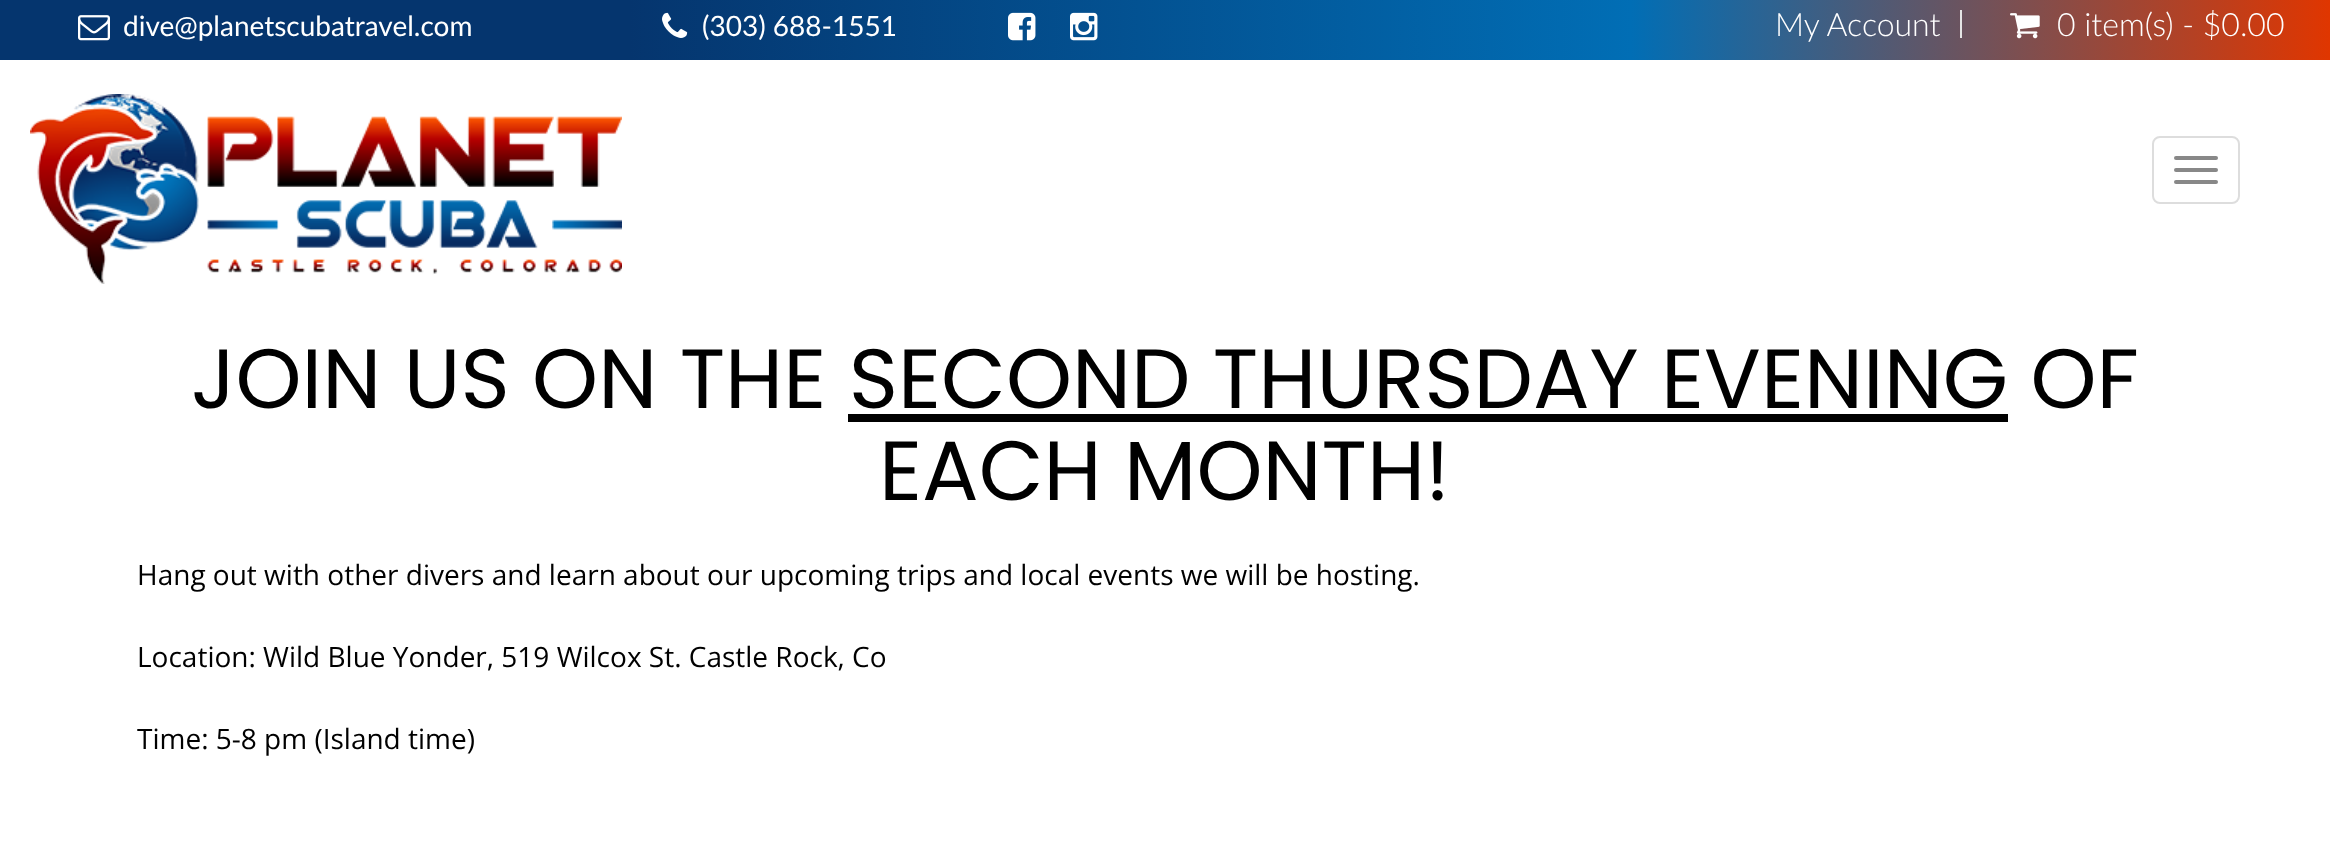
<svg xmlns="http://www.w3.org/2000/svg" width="2330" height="852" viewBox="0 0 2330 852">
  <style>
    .t1 { font: 28px Lato; fill: #fff; }
    .t2 { font: 300 32px Lato; fill: #fff; }
    .t3 { font: 84px Poppins; fill: #000; }
    .t4 { font: 28px Open Sans; fill: #000; }
  </style>
  <defs>
    <linearGradient id="g1" gradientUnits="userSpaceOnUse" x1="0" y1="30" x2="2330" y2="30"><stop offset="0.27" stop-color="#05356e"/><stop offset="0.7" stop-color="#016eb5"/><stop offset="1" stop-color="#e03600"/></linearGradient>
  </defs>
  <rect width="100%" height="100%" fill="#fff"/>
  <rect x="0" y="0" width="2330" height="60" fill="url(#g1)"/>
  <image x="78" y="15" width="32" height="26" href="images/1.png"/>
  <text x="123" y="36" class="t1">dive@planetscubatravel.com</text>
  <image x="662" y="12" width="26" height="26" href="images/2.png"/>
  <text x="702" y="36" class="t1">(303) 688-1551</text>
  <image x="1008" y="12" width="28" height="29" href="images/3.png"/>
  <image x="1070" y="12" width="28" height="29" href="images/4.png"/>
  <rect x="1960" y="10" width="2" height="28" fill="#e5e5e5"/>
  <text x="1775" y="36" class="t2">My Account</text>
  <image x="2010" y="13" width="30" height="26" href="images/5.png"/>
  <text x="2057" y="36" class="t2">0 item(s) - $0.00</text>
  <image x="30" y="94" width="592" height="190" href="images/6.png"/>
  <rect x="2153" y="137" width="86" height="66" rx="7" fill="none" stroke="#ddd" stroke-width="2"/>
  <rect x="2174" y="156" width="44" height="4" rx="2" fill="#888"/>
  <rect x="2174" y="168" width="44" height="4" rx="2" fill="#888"/>
  <rect x="2174" y="180" width="44" height="4" rx="2" fill="#888"/>
  <text x="191" y="408" class="t3">JOIN US ON THE SECOND THURSDAY EVENING OF</text>
  <rect x="848" y="414" width="1160" height="8" fill="#000"/>
  <text x="879" y="500" class="t3">EACH MONTH!</text>
  <text x="137" y="585" class="t4">Hang out with other divers and learn about our upcoming trips and local events we will be hosting.</text>
  <text x="137" y="667" class="t4">Location: Wild Blue Yonder, 519 Wilcox St. Castle Rock, Co</text>
  <text x="137" y="749" class="t4">Time: 5-8 pm (Island time)</text>
</svg>
